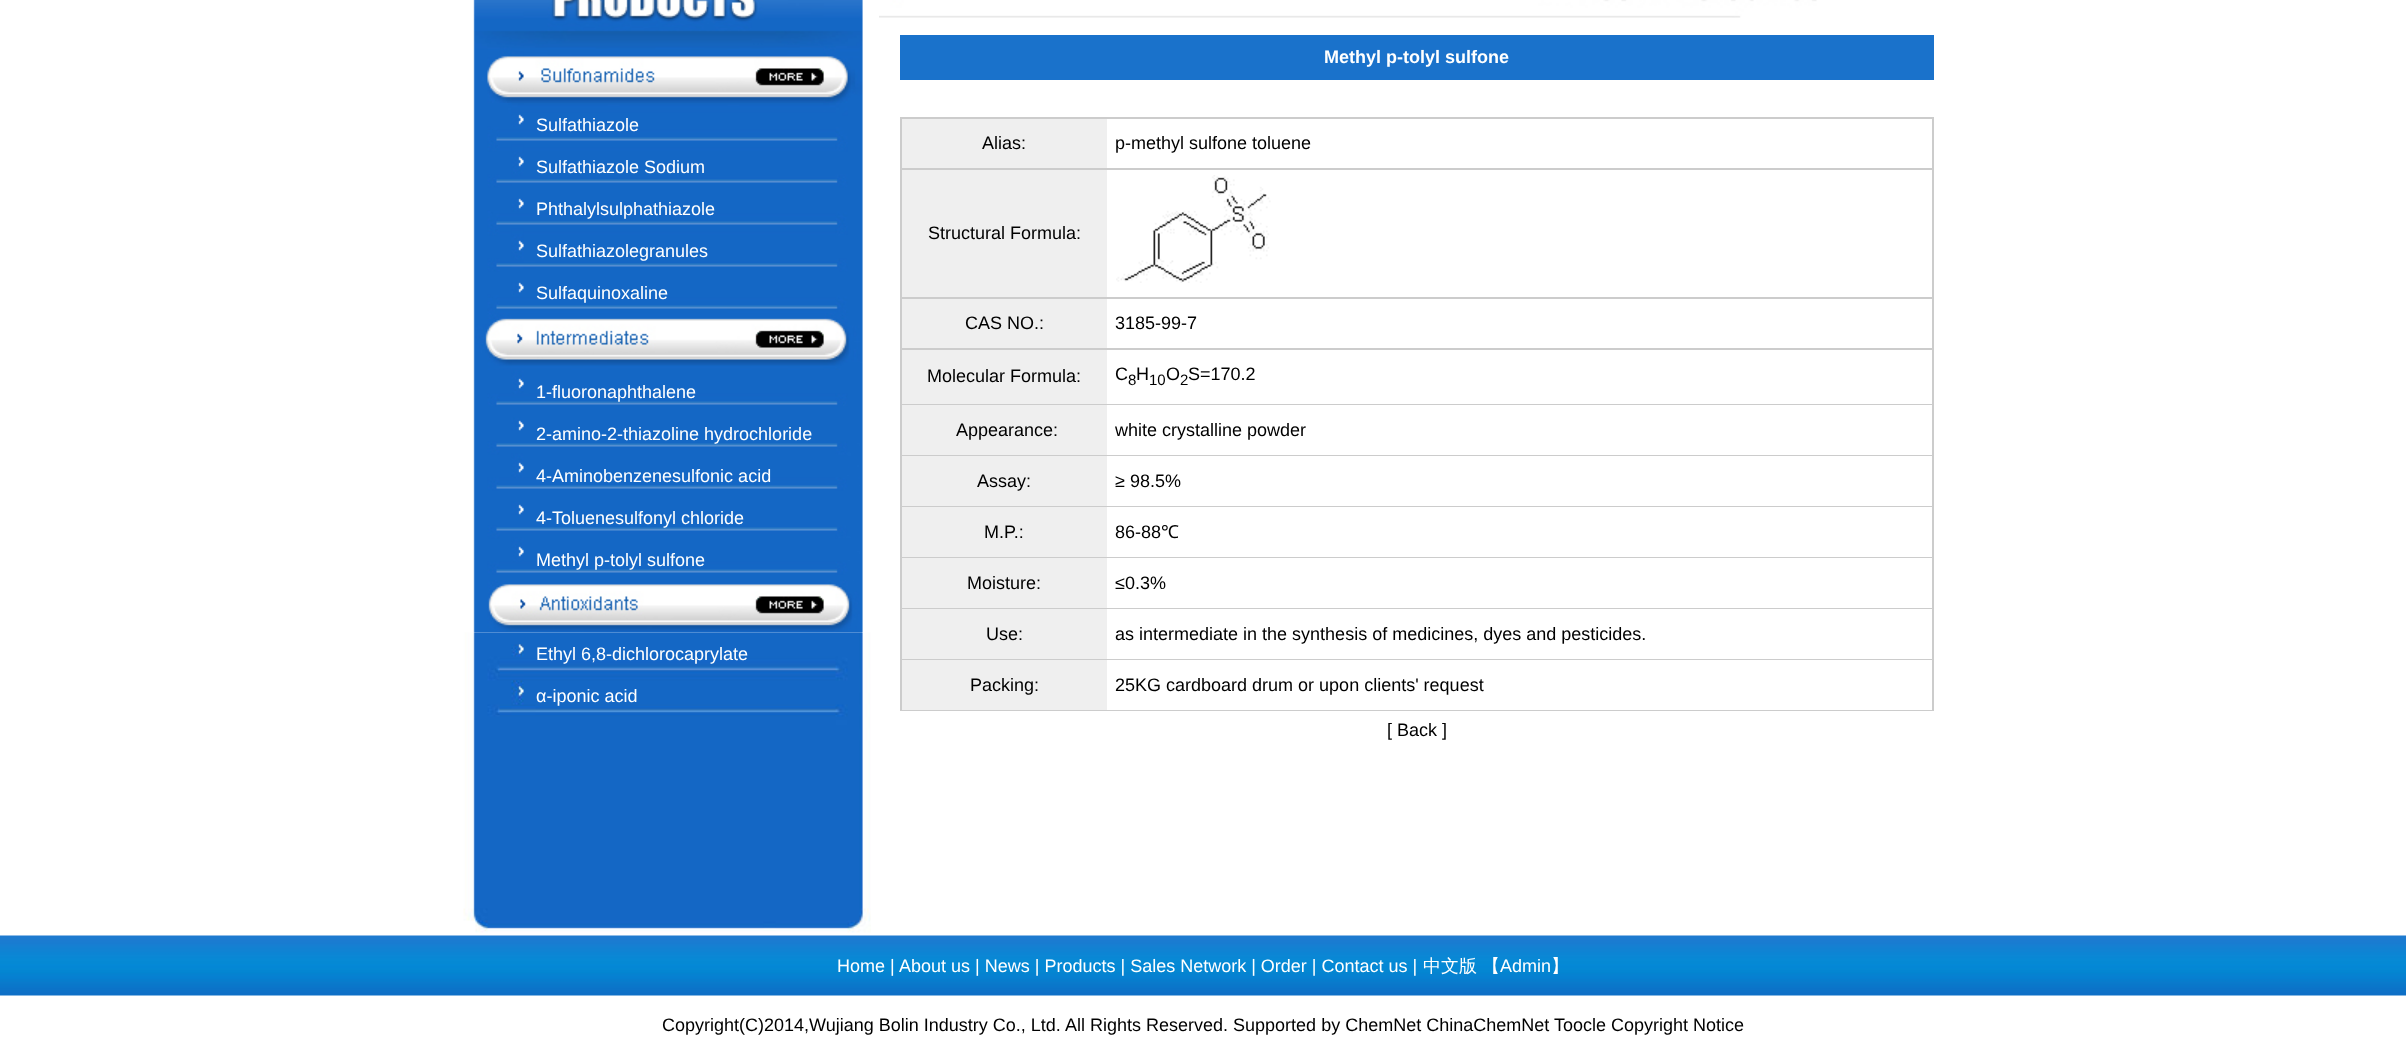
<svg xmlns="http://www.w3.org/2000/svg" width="2406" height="1056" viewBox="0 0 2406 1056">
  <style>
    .t1 { font: 18px Liberation Sans; fill: #fff; }
    .t2 { font: bold 18px Liberation Sans; fill: #fff; }
    .t3 { font: 18px Liberation Sans; fill: #000; }
    .t4 { font: 15px Liberation Sans; fill: #000; }
    .t5 { font: 18px Noto Sans; fill: #000; }
    .t6 { font: 500 18px WenQuanYi Zen Hei; fill: #fff; }
  </style>
  <rect width="100%" height="100%" fill="#fff"/>
  <image x="473" y="0" width="390" height="46" href="images/1.png"/>
  <image x="473" y="46" width="390" height="57" href="images/2.png"/>
  <image x="473" y="103" width="390" height="210" href="images/3.png"/>
  <text x="536" y="131" class="t1">Sulfathiazole</text>
  <text x="536" y="173" class="t1">Sulfathiazole Sodium</text>
  <text x="536" y="215" class="t1">Phthalylsulphathiazole</text>
  <text x="536" y="257" class="t1">Sulfathiazolegranules</text>
  <text x="536" y="299" class="t1">Sulfaquinoxaline</text>
  <image x="473" y="313" width="390" height="57" href="images/4.png"/>
  <image x="473" y="370" width="390" height="210" href="images/5.png"/>
  <text x="536" y="398" class="t1">1-fluoronaphthalene</text>
  <text x="536" y="440" class="t1">2-amino-2-thiazoline hydrochloride</text>
  <text x="536" y="482" class="t1">4-Aminobenzenesulfonic acid</text>
  <text x="536" y="524" class="t1">4-Toluenesulfonyl chloride</text>
  <text x="536" y="566" class="t1">Methyl p-tolyl sulfone</text>
  <image x="463" y="632" width="408" height="301" href="images/7.png"/>
  <image x="473" y="580" width="390" height="53" href="images/6.png"/>
  <text x="536" y="660" class="t1">Ethyl 6,8-dichlorocaprylate</text>
  <text x="536" y="702" class="t1">α-iponic acid</text>
  <image x="879" y="0" width="938" height="18" href="images/8.png"/>
  <rect x="900" y="35" width="1034" height="45" fill="#1a72cb"/>
  <text x="1324" y="63" class="t2">Methyl p-tolyl sulfone</text>
  <rect x="900" y="117" width="1034" height="594" fill="#ccc"/>
  <rect x="1107" y="119" width="825" height="49" fill="#fff"/>
  <rect x="902" y="119" width="205" height="49" fill="#efefef"/>
  <text x="982" y="149" class="t3">Alias:</text>
  <text x="1115" y="149" class="t3">p-methyl sulfone toluene</text>
  <rect x="1107" y="170" width="825" height="127" fill="#fff"/>
  <rect x="902" y="170" width="205" height="127" fill="#efefef"/>
  <text x="928" y="239" class="t3">Structural Formula:</text>
  <image x="1116" y="175" width="155" height="108" href="images/9.png"/>
  <rect x="1107" y="299" width="825" height="49" fill="#fff"/>
  <rect x="902" y="299" width="205" height="49" fill="#efefef"/>
  <text x="965" y="329" class="t3">CAS NO.:</text>
  <text x="1115" y="329" class="t3">3185-99-7</text>
  <rect x="1107" y="350" width="825" height="54" fill="#fff"/>
  <rect x="902" y="350" width="205" height="54" fill="#efefef"/>
  <text x="927" y="382" class="t3">Molecular Formula:</text>
  <text x="1115" y="380" class="t3">C</text>
  <text x="1128" y="385" class="t4">8</text>
  <text x="1136" y="380" class="t3">H</text>
  <text x="1149" y="385" class="t4">10</text>
  <text x="1166" y="380" class="t3">O</text>
  <text x="1180" y="385" class="t4">2</text>
  <text x="1188" y="380" class="t3">S=170.2</text>
  <rect x="1107" y="405" width="825" height="50" fill="#fff"/>
  <rect x="902" y="405" width="205" height="50" fill="#efefef"/>
  <text x="956" y="436" class="t3">Appearance:</text>
  <text x="1115" y="436" class="t3">white crystalline powder</text>
  <rect x="1107" y="456" width="825" height="50" fill="#fff"/>
  <rect x="902" y="456" width="205" height="50" fill="#efefef"/>
  <text x="977" y="487" class="t3">Assay:</text>
  <text x="1115" y="487" class="t3">≥ 98.5%</text>
  <rect x="1107" y="507" width="825" height="50" fill="#fff"/>
  <rect x="902" y="507" width="205" height="50" fill="#efefef"/>
  <text x="984" y="538" class="t3">M.P.:</text>
  <text x="1115" y="538" class="t3">86-88</text>
  <text x="1161" y="538" class="t5">℃</text>
  <rect x="1107" y="558" width="825" height="50" fill="#fff"/>
  <rect x="902" y="558" width="205" height="50" fill="#efefef"/>
  <text x="967" y="589" class="t3">Moisture:</text>
  <text x="1115" y="589" class="t3">≤0.3%</text>
  <rect x="1107" y="609" width="825" height="50" fill="#fff"/>
  <rect x="902" y="609" width="205" height="50" fill="#efefef"/>
  <text x="986" y="640" class="t3">Use:</text>
  <text x="1115" y="640" class="t3">as intermediate in the synthesis of medicines, dyes and pesticides.</text>
  <rect x="1107" y="660" width="825" height="50" fill="#fff"/>
  <rect x="902" y="660" width="205" height="50" fill="#efefef"/>
  <text x="970" y="691" class="t3">Packing:</text>
  <text x="1115" y="691" class="t3">25KG cardboard drum or upon clients' request</text>
  <text x="1387" y="736" class="t3">[ Back ]</text>
  <image x="0" y="935" width="2406" height="61" href="images/10.png"/>
  <text x="837" y="972" class="t1">Home</text>
  <text x="890" y="972" class="t1">|</text>
  <text x="899" y="972" class="t1">About us | News | Products | Sales Network | Order | Contact us |</text>
  <text x="1423" y="972" class="t6">中文版</text>
  <text x="1482" y="972" class="t6">【</text>
  <text x="1500" y="972" class="t1">Admin</text>
  <text x="1551" y="972" class="t6">】</text>
  <text x="662" y="1031" class="t3">Copyright(C)2014,</text>
  <text x="809" y="1031" class="t3">Wujiang Bolin Industry Co., Ltd.</text>
  <text x="1065" y="1031" class="t3">All Rights Reserved. Supported by ChemNet ChinaChemNet Toocle Copyright Notice</text>
</svg>
